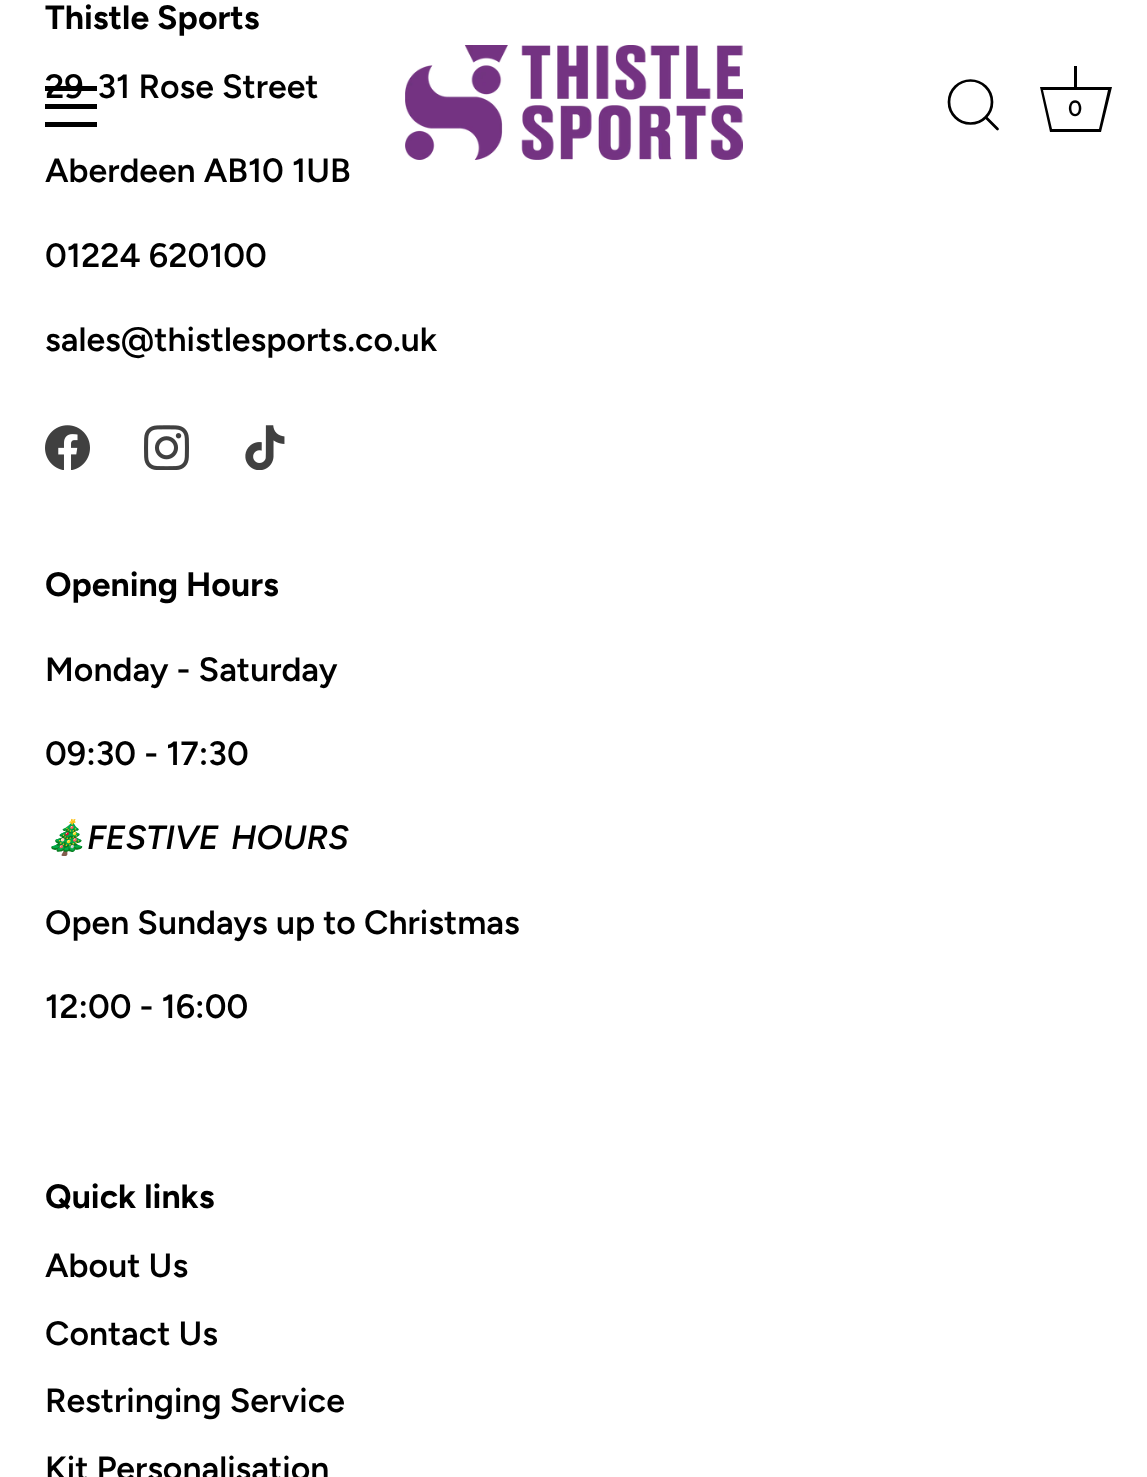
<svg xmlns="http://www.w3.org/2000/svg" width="1147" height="1477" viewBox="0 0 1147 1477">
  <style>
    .t1 { font: bold 33.75px Figtree; fill: #000; }
    .t2 { font: 600 33.75px Figtree; fill: #000; }
    .t3 { font: italic bold 33.75px Noto Color Emoji; fill: #000; }
    .t4 { font: italic 600 33.75px Figtree; fill: #000; }
    .t5 { font: 600 22px Figtree; fill: #000; }
  </style>
  <rect width="100%" height="100%" fill="#fff"/>
  <text x="45" y="29" class="t1">Thistle Sports</text>
  <text x="45" y="98" class="t2">29-31 Rose Street</text>
  <text x="45" y="182" class="t2">Aberdeen AB10 1UB</text>
  <text x="45" y="267" class="t2">01224 620100</text>
  <text x="45" y="351" class="t2">sales@thistlesports.co.uk</text>
  <image x="45" y="425" width="45" height="45" href="images/1.png"/>
  <image x="144" y="425" width="45" height="45" href="images/2.png"/>
  <image x="245" y="425" width="40" height="45" href="images/3.png"/>
  <text x="45" y="596" class="t1">Opening Hours</text>
  <text x="45" y="681" class="t2">Monday - Saturday</text>
  <text x="45" y="765" class="t2">09:30 - 17:30</text>
  <text x="45" y="849" class="t3">🎄</text>
  <text x="87" y="849" word-spacing="4" class="t4">FESTIVE HOURS</text>
  <text x="45" y="934" class="t2">Open Sundays up to Christmas</text>
  <text x="45" y="1018" class="t2">12:00 - 16:00</text>
  <text x="45" y="1208" class="t1">Quick links</text>
  <text x="45" y="1277" class="t2">About Us</text>
  <text x="45" y="1345" class="t2">Contact Us</text>
  <text x="45" y="1412" class="t2">Restringing Service</text>
  <text x="45" y="1480" class="t2">Kit Personalisation</text>
  <rect x="45" y="86" width="52" height="5" fill="#000"/>
  <rect x="45" y="104" width="52" height="5" fill="#000"/>
  <rect x="45" y="122" width="52" height="5" fill="#000"/>
  <image x="405" y="45" width="338" height="115" href="images/4.png"/>
  <circle cx="970.5" cy="102" r="21.5" fill="none" stroke="#000" stroke-width="2.7"/>
  <path d="M997.5 129L986 117.5" fill="none" stroke="#000" stroke-width="2.7" stroke-linecap="round" stroke-linejoin="round"/>
  <rect x="1074" y="66" width="3" height="21" fill="#000"/>
  <path d="M1108 90L1099 129H1052L1043 90H1108M1112 87H1040L1050 132H1101Z" fill="#000"/>
  <text x="1068" y="116" class="t5">0</text>
</svg>
